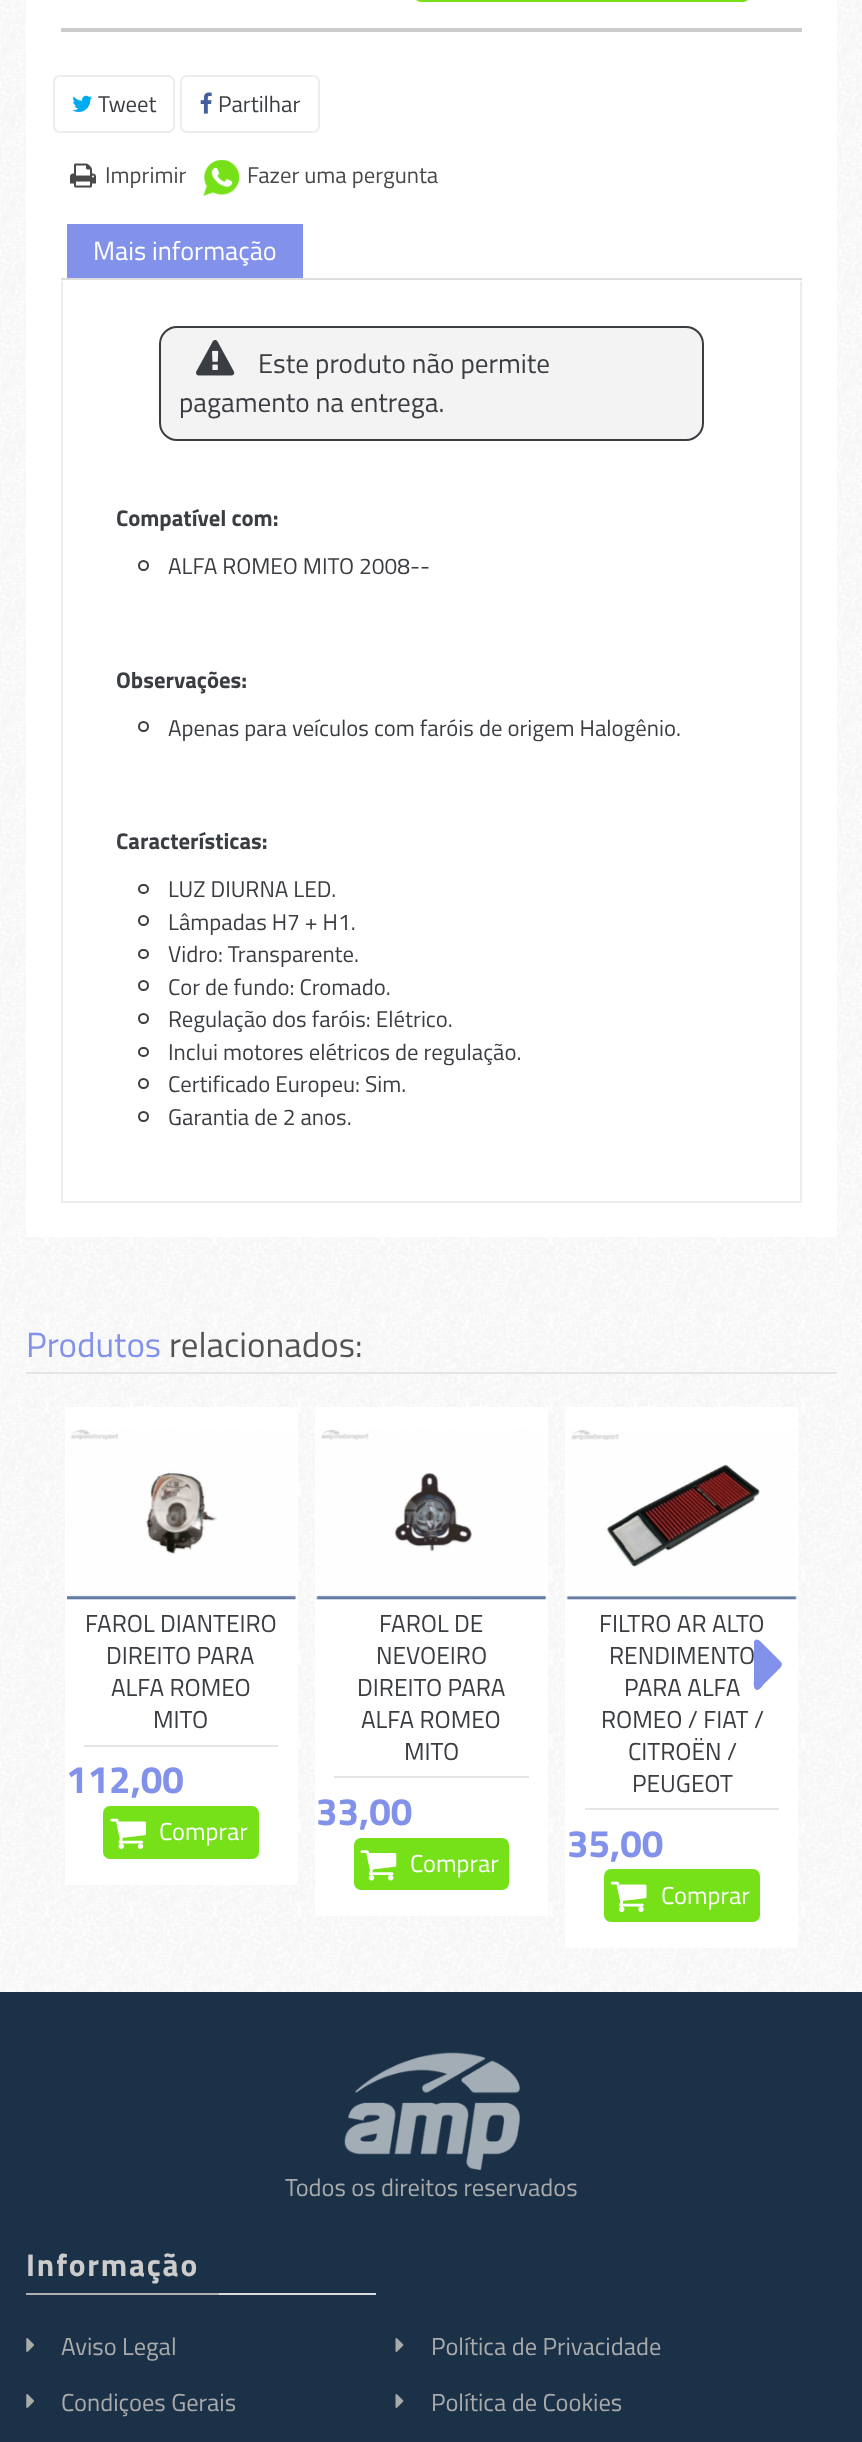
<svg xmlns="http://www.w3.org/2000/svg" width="862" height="2442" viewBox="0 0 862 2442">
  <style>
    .t1 { font: 22.75px Titillium Web; fill: #3a3d41; }
    .t2 { font: 22.75px Titillium Web; fill: #494949; }
    .t3 { font: 26.25px Titillium Web; fill: #fff; }
    .t4 { font: 27.25px Titillium Web; fill: #3a3d41; }
    .t5 { font: bold 22.75px Titillium Web; fill: #3a3d41; }
    .t6 { font: 35px Titillium Web; fill: #8292ea; }
    .t7 { font: 35px Titillium Web; fill: #535353; }
    .t8 { font: 24.5px Titillium Web; fill: #3a3d41; }
    .t9 { font: bold 38.5px Titillium Web; fill: #8292ea; }
    .t10 { font: 24.5px Titillium Web; fill: #fff; }
    .t11 { font: 24.5px Titillium Web; fill: #aaa; }
    .t12 { font: bold 31.5px Titillium Web; letter-spacing: 1.75px; fill: #ccc; }
  </style>
  <rect width="100%" height="100%" fill="#fff"/>
  <image x="0" y="0" width="862" height="1992" href="images/1.png"/>
  <rect x="26" y="0" width="811" height="1237" fill="#fff"/>
  <rect x="61" y="28" width="741" height="4" fill="#ccc"/>
  <rect x="415" y="-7" width="334" height="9" rx="7" fill="#76e119"/>
  <rect x="54" y="76" width="120" height="56" rx="6" fill="none" stroke="#ededed" stroke-width="2"/>
  <image x="72" y="95" width="21" height="17" href="images/2.png"/>
  <text x="98" y="112" class="t1">Tweet</text>
  <rect x="181" y="76" width="138" height="56" rx="6" fill="none" stroke="#ededed" stroke-width="2"/>
  <image x="200" y="92" width="12" height="22" href="images/3.png"/>
  <text x="218" y="112" class="t1">Partilhar</text>
  <image x="70" y="163" width="26" height="25" href="images/4.png"/>
  <text x="105" y="183" class="t2">Imprimir</text>
  <image x="203" y="160" width="36" height="36" href="images/5.png"/>
  <text x="247" y="183" class="t2">Fazer uma pergunta</text>
  <rect x="61" y="278" width="741" height="2" fill="#ddd"/>
  <rect x="67" y="224" width="236" height="54" fill="#8292ea"/>
  <text x="93" y="260" class="t3">Mais informação</text>
  <path d="M802 280V1202L800 1200V282Z" fill="#ededed"/>
  <rect x="61" y="1201" width="741" height="2" fill="#ededed"/>
  <path d="M61 1202V280L63 282V1200Z" fill="#ededed"/>
  <rect x="160" y="327" width="543" height="113" rx="17" fill="#f3f3f3" stroke="#3a3d41" stroke-width="2"/>
  <image x="196" y="340" width="39" height="36" href="images/6.png"/>
  <text x="258" y="373" class="t4">Este produto não permite</text>
  <text x="179" y="412" class="t4">pagamento na entrega.</text>
  <text x="116" y="526" class="t5">Compatível com:</text>
  <circle cx="143.5" cy="565.5" r="4.5" fill="none" stroke="#3a3d41" stroke-width="2"/>
  <text x="168" y="574" class="t1">ALFA ROMEO MITO 2008--</text>
  <text x="116" y="688" class="t5">Observações:</text>
  <circle cx="143.5" cy="726.5" r="4.5" fill="none" stroke="#3a3d41" stroke-width="2"/>
  <text x="168" y="736" class="t1">Apenas para veículos com faróis de origem Halogênio.</text>
  <text x="116" y="849" class="t5">Características:</text>
  <rect x="139" y="885" width="9" height="8" rx="4" fill="none" stroke="#3a3d41" stroke-width="2"/>
  <text x="168" y="897" class="t1">LUZ DIURNA LED.</text>
  <circle cx="143.5" cy="920.5" r="4.5" fill="none" stroke="#3a3d41" stroke-width="2"/>
  <text x="168" y="930" class="t1">Lâmpadas H7 + H1.</text>
  <rect x="139" y="950" width="9" height="8" rx="4" fill="none" stroke="#3a3d41" stroke-width="2"/>
  <text x="168" y="962" class="t1">Vidro: Transparente.</text>
  <circle cx="143.5" cy="985.5" r="4.5" fill="none" stroke="#3a3d41" stroke-width="2"/>
  <text x="168" y="995" class="t1">Cor de fundo: Cromado.</text>
  <circle cx="143.5" cy="1018.5" r="4.5" fill="none" stroke="#3a3d41" stroke-width="2"/>
  <text x="168" y="1027" class="t1">Regulação dos faróis: Elétrico.</text>
  <rect x="139" y="1048" width="9" height="8" rx="4" fill="none" stroke="#3a3d41" stroke-width="2"/>
  <text x="168" y="1060" class="t1">Inclui motores elétricos de regulação.</text>
  <circle cx="143.5" cy="1083.5" r="4.5" fill="none" stroke="#3a3d41" stroke-width="2"/>
  <text x="168" y="1092" class="t1">Certificado Europeu: Sim.</text>
  <circle cx="143.5" cy="1116.5" r="4.5" fill="none" stroke="#3a3d41" stroke-width="2"/>
  <text x="168" y="1125" class="t1">Garantia de 2 anos.</text>
  <rect x="26" y="1372" width="811" height="2" fill="#e5e5e5"/>
  <text x="26" y="1357" class="t6">Produtos</text>
  <text x="169" y="1357" class="t7">relacionados:</text>
  <rect x="65" y="1407" width="233" height="478" fill="#fff"/>
  <image x="67" y="1429" width="230" height="171" href="images/7.png"/>
  <rect x="84" y="1745" width="194" height="2" fill="#e5e5e5"/>
  <text x="85" y="1632" class="t8">FAROL DIANTEIRO</text>
  <text x="106" y="1664" class="t8">DIREITO PARA</text>
  <text x="111" y="1696" class="t8">ALFA ROMEO</text>
  <text x="153" y="1728" class="t8">MITO</text>
  <text x="66" y="1793" class="t9">112,00</text>
  <rect x="103" y="1806" width="156" height="53" rx="7" fill="#76e119"/>
  <image x="110" y="1818" width="36" height="31" href="images/8.png"/>
  <text x="159" y="1840" class="t10">Comprar</text>
  <rect x="315" y="1407" width="233" height="509" fill="#fff"/>
  <image x="316" y="1429" width="231" height="171" href="images/9.png"/>
  <rect x="334" y="1776" width="195" height="2" fill="#e5e5e5"/>
  <text x="379" y="1632" class="t8">FAROL DE</text>
  <text x="376" y="1664" class="t8">NEVOEIRO</text>
  <text x="357" y="1696" class="t8">DIREITO PARA</text>
  <text x="361" y="1728" class="t8">ALFA ROMEO</text>
  <text x="404" y="1760" class="t8">MITO</text>
  <text x="316" y="1825" class="t9">33,00</text>
  <rect x="354" y="1838" width="155" height="52" rx="7" fill="#76e119"/>
  <image x="360" y="1850" width="37" height="31" href="images/10.png"/>
  <text x="410" y="1872" class="t10">Comprar</text>
  <rect x="565" y="1407" width="233" height="541" fill="#fff"/>
  <image x="566" y="1430" width="231" height="170" href="images/11.png"/>
  <rect x="585" y="1808" width="194" height="2" fill="#e5e5e5"/>
  <text x="599" y="1632" class="t8">FILTRO AR ALTO</text>
  <text x="609" y="1664" class="t8">RENDIMENTO</text>
  <text x="624" y="1696" class="t8">PARA ALFA</text>
  <text x="601" y="1728" class="t8">ROMEO / FIAT /</text>
  <text x="628" y="1760" class="t8">CITROËN /</text>
  <text x="632" y="1792" class="t8">PEUGEOT</text>
  <text x="567" y="1857" class="t9">35,00</text>
  <rect x="604" y="1869" width="156" height="53" rx="7" fill="#76e119"/>
  <image x="610" y="1881" width="37" height="31" href="images/12.png"/>
  <text x="661" y="1904" class="t10">Comprar</text>
  <path d="M781 1662C784 1665 779 1669 778 1670L763 1685C762 1687 758 1692 755 1689C753 1686 754 1680 754 1679V1642C756 1636 762 1643 763 1644Z" fill="#8292ea"/>
  <rect x="0" y="1992" width="862" height="450" fill="#1b3148"/>
  <image x="344" y="2052" width="176" height="118" href="images/13.png"/>
  <text x="285" y="2196" class="t11">Todos os direitos reservados</text>
  <text x="26" y="2276" class="t12">Informação</text>
  <rect x="26" y="2293" width="193" height="2" fill="#b0b0b0"/>
  <rect x="219" y="2293" width="157" height="2" fill="#dcdcdc"/>
  <image x="26" y="2338" width="8" height="14" href="images/14.png"/>
  <text x="61" y="2355" class="t11">Aviso Legal</text>
  <image x="395" y="2338" width="9" height="14" href="images/15.png"/>
  <text x="431" y="2355" class="t11">Política de Privacidade</text>
  <image x="26" y="2394" width="8" height="14" href="images/14.png"/>
  <text x="61" y="2411" class="t11">Condiçoes Gerais</text>
  <image x="395" y="2394" width="9" height="14" href="images/15.png"/>
  <text x="431" y="2411" class="t11">Política de Cookies</text>
</svg>
